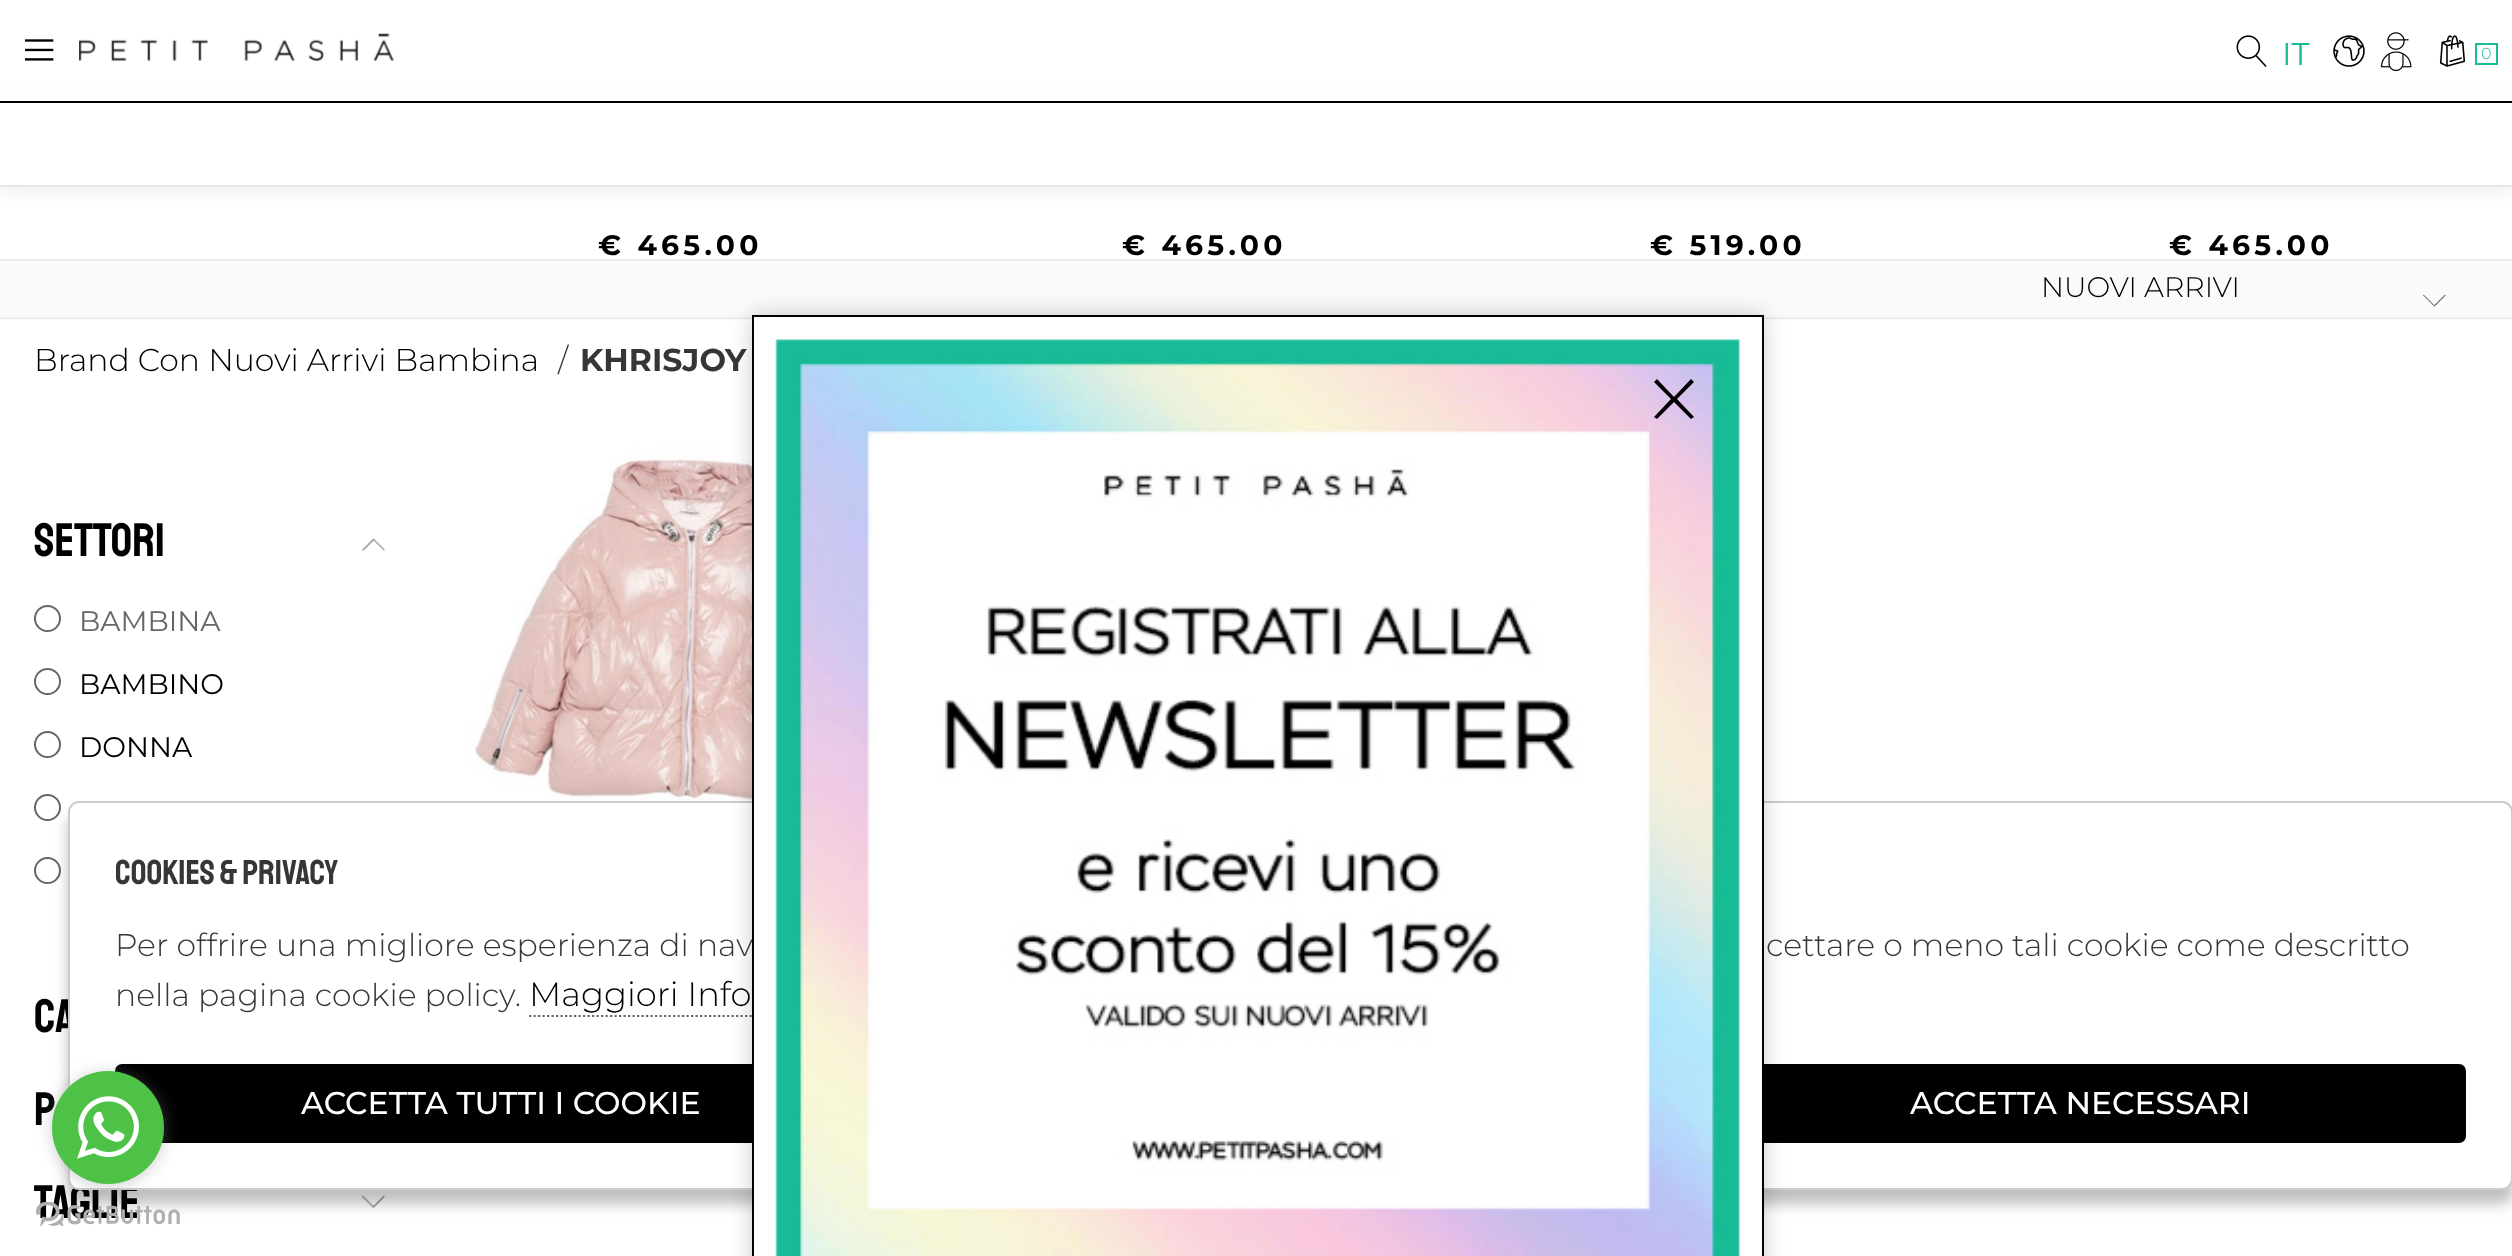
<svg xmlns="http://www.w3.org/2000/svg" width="2512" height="1256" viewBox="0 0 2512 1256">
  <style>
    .t1 { font: 31.5px Montserrat; fill: #17bb96; }
    .t2 { font: 300 16px Montserrat; fill: #17bb96; }
    .t3 { font: bold 28.25px Montserrat; letter-spacing: 4.25px; fill: #000; }
    .t4 { font: 47px Staatliches; fill: #000; }
    .t5 { font: 28.25px Montserrat; fill: #666; }
    .t6 { font: 28.25px Montserrat; fill: #000; }
    .t7 { font: 300 28.25px Montserrat; fill: #000; }
    .t8 { font: 300 31.5px Montserrat; fill: #000; }
    .t9 { font: 300 31.5px Montserrat; fill: #373636; }
    .t10 { font: bold 31.5px Montserrat; fill: #373636; }
    .t11 { font: 34.5px Staatliches; fill: #373636; }
    .t12 { font: 300 33.75px Montserrat; fill: #000; }
    .t13 { font: 500 31.5px Montserrat; fill: #fff; }
  </style>
  <defs>
    <clipPath id="clip1"><rect x="34" y="1170" width="351" height="70"/></clipPath>
  </defs>
  <rect width="100%" height="100%" fill="#fff"/>
  <rect x="0" y="104" width="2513" height="83" fill="#0000001a" filter="blur(11px)"/>
  <rect x="0" y="90" width="2512" height="95" fill="#fff"/>
  <rect x="0" y="101" width="2512" height="2" fill="#000"/>
  <image x="24" y="39" width="30" height="22" href="images/1.png"/>
  <image x="79" y="33" width="315" height="28" href="images/2.png"/>
  <image x="2236" y="35" width="31" height="32" href="images/3.png"/>
  <text x="2282" y="65" class="t1">IT</text>
  <image x="2333" y="35" width="32" height="32" href="images/4.png"/>
  <image x="2380" y="32" width="32" height="40" href="images/5.png"/>
  <image x="2439" y="35" width="27" height="32" href="images/6.png"/>
  <rect x="2476" y="44" width="21" height="20" fill="none" stroke="#17bb96" stroke-width="2"/>
  <text x="2481" y="59" class="t2">0</text>
  <rect x="0" y="185" width="2512" height="2" fill="#e5e5e5"/>
  <text x="598" y="255" class="t3">€ 465.00</text>
  <text x="1122" y="255" class="t3">€ 465.00</text>
  <text x="1650" y="255" class="t3">€ 519.00</text>
  <text x="2169" y="255" class="t3">€ 465.00</text>
  <image x="455" y="403" width="297" height="398" href="images/7.png"/>
  <text x="34" y="556" class="t4">SETTORI</text>
  <image x="362" y="538" width="23" height="13" href="images/8.png"/>
  <circle cx="47.5" cy="618.5" r="12.5" fill="none" stroke="#666" stroke-width="2"/>
  <text x="79" y="631" class="t5">BAMBINA</text>
  <circle cx="47.5" cy="681.5" r="12.5" fill="none" stroke="#666" stroke-width="2"/>
  <text x="79" y="694" class="t6">BAMBINO</text>
  <circle cx="47.5" cy="744.5" r="12.5" fill="none" stroke="#666" stroke-width="2"/>
  <text x="79" y="757" class="t6">DONNA</text>
  <circle cx="47.5" cy="807.5" r="12.5" fill="none" stroke="#666" stroke-width="2"/>
  <circle cx="47.5" cy="870.5" r="12.5" fill="none" stroke="#666" stroke-width="2"/>
  <text x="34" y="1032" class="t4">CA</text>
  <text x="34" y="1125" class="t4">P</text>
  <g clip-path="url(#clip1)">
    <text x="34" y="1218" class="t4">TAGLIE</text>
  </g>
  <image x="362" y="1195" width="23" height="13" href="images/9.png"/>
  <rect x="0" y="261" width="2512" height="59" fill="#fafafa"/>
  <rect x="0" y="259" width="2512" height="2" fill="#ededed"/>
  <rect x="0" y="317" width="2512" height="2" fill="#ededed"/>
  <image x="2423" y="295" width="23" height="12" href="images/10.png"/>
  <text x="2041" y="297" class="t7">NUOVI ARRIVI</text>
  <text x="34" y="371" class="t8">Brand Con Nuovi Arrivi Bambina</text>
  <text x="558" y="371" class="t9">/</text>
  <text x="580" y="371" class="t10">KHRISJOY</text>
  <rect x="68" y="815" width="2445" height="389" rx="11" fill="#00000040" filter="blur(7px)"/>
  <rect x="69" y="802" width="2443" height="387" rx="10" fill="#fff" stroke="#ccc" stroke-width="2"/>
  <path d="M529 1016H898" fill="none" stroke="#696969" stroke-width="2.2" stroke-dasharray="2.25 2.25"/>
  <rect x="115" y="1064" width="772" height="79" rx="7" fill="#000"/>
  <rect x="1694" y="1064" width="772" height="79" rx="7" fill="#000"/>
  <rect x="752" y="315" width="1012" height="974" fill="#00000033" filter="blur(11px)"/>
  <text x="115" y="956" class="t9">Per offrire una migliore esperienza di nav</text>
  <rect x="753" y="316" width="1010" height="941" fill="#fff" stroke="#000" stroke-width="2"/>
  <image x="775" y="339" width="965" height="917" href="images/11.png"/>
  <path d="M1657 379L1654 382L1671 399L1654 417L1657 419L1674 402L1691 419L1694 417L1677 399L1694 382L1691 379L1674 397Z" fill="#000"/>
  <text x="115" y="884" class="t11">Cookies &amp; Privacy</text>
  <text x="1766" y="956" class="t9">cettare o meno tali cookie come descritto</text>
  <text x="115" y="1006" class="t9">nella pagina cookie policy.</text>
  <text x="529" y="1006" class="t12">Maggiori Info</text>
  <text x="301" y="1114" class="t13">ACCETTA TUTTI I COOKIE</text>
  <text x="1910" y="1114" class="t13">ACCETTA NECESSARI</text>
  <image x="36" y="1202" width="144" height="24" href="images/13.png"/>
  <rect x="52" y="1073" width="112" height="113" rx="56" fill="#88888866" filter="blur(8px)"/>
  <rect x="52" y="1071" width="112" height="113" rx="56" fill="#4dc247"/>
  <image x="77" y="1096" width="62" height="63" href="images/12.png"/>
</svg>
